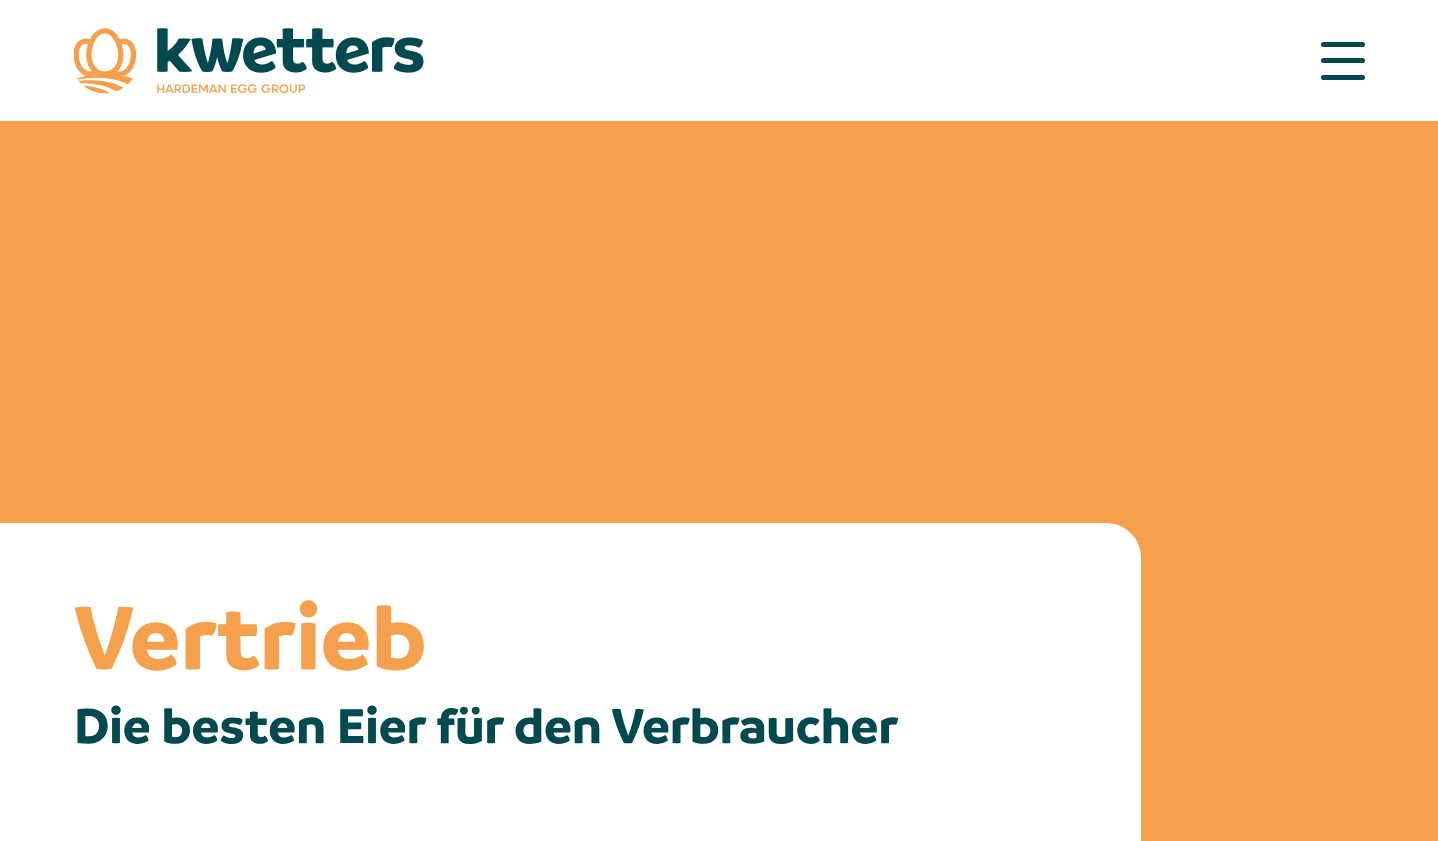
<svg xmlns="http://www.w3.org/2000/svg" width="1438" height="841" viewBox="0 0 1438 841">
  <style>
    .t1 { font: bold 96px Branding; fill: #f5a04c; }
    .t2 { font: bold 52.5px Branding; fill: #00494e; }
  </style>
  <rect width="100%" height="100%" fill="#fff"/>
  <image x="74" y="28" width="350" height="66" href="images/1.png"/>
  <rect x="1321" y="42" width="44" height="5" rx="2.5" fill="#00494e"/>
  <rect x="1321" y="58" width="44" height="5" rx="2.5" fill="#00494e"/>
  <rect x="1321" y="75" width="44" height="5" rx="2.5" fill="#00494e"/>
  <rect x="0" y="121" width="1438" height="720" fill="#f5a04c"/>
  <path d="M0 523H1106C1125.5 523 1141 538.5 1141 558V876H0Z" fill="#fff"/>
  <text x="74" y="669" class="t1">Vertrieb</text>
  <text x="74" y="743" class="t2">Die besten Eier für den Verbraucher</text>
</svg>
